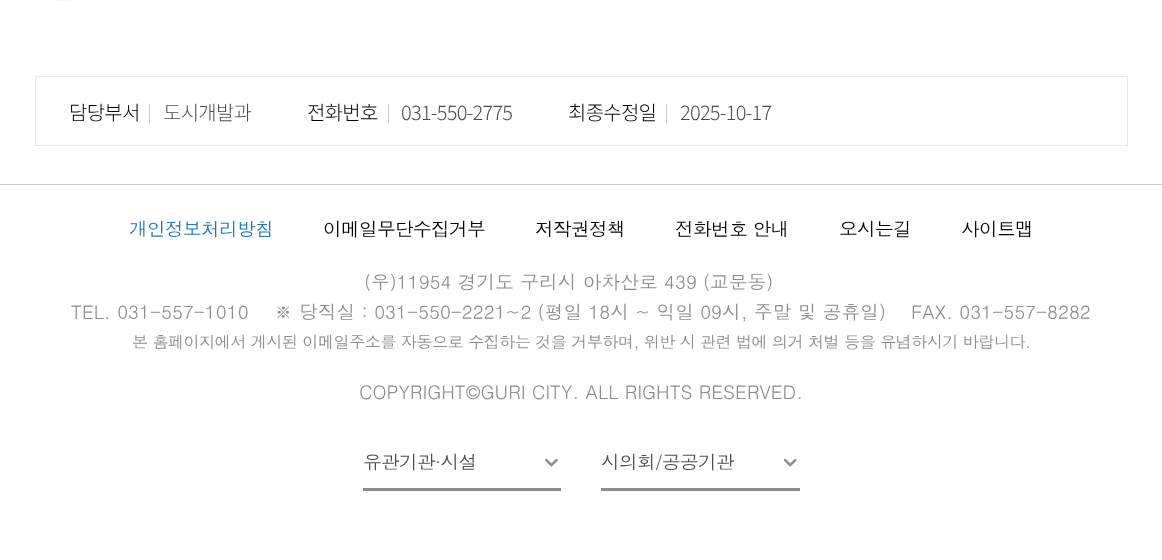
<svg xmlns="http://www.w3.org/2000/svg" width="1162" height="560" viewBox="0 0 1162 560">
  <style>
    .t1 { font: 300 20px Noto Sans KR; letter-spacing: -0.75px; fill: #000; }
    .t2 { font: 300 20px Noto Sans KR; letter-spacing: -0.75px; fill: #4d4d4d; }
    .t3 { font: 18.75px Dotum; letter-spacing: -0.75px; fill: #1b75bc; }
    .t4 { font: 18.75px Dotum; letter-spacing: -0.75px; fill: #000; }
    .t5 { font: 18.75px Dotum; fill: #8c8c8c; }
    .t6 { font: 16.25px Dotum; letter-spacing: -0.65px; fill: #8c8c8c; }
    .t7 { font: 18.75px Dotum; letter-spacing: -0.75px; fill: #4d4d4d; }
  </style>
  <rect width="100%" height="100%" fill="#fff"/>
  <rect x="35" y="-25" width="56" height="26" rx="25" fill="#f6f6f6"/>
  <rect x="35.5" y="76.5" width="1092" height="69" fill="none" stroke="#e9e9e9"/>
  <text x="69" y="120" class="t1">담당부서</text>
  <rect x="149" y="104" width="1" height="19" fill="#ccc"/>
  <text x="163" y="120" class="t2">도시개발과</text>
  <text x="307" y="120" class="t1">전화번호</text>
  <rect x="388" y="104" width="1" height="19" fill="#ccc"/>
  <text x="401" y="120" class="t2">031-550-2775</text>
  <text x="568" y="120" class="t1">최종수정일</text>
  <rect x="666" y="104" width="1" height="19" fill="#ccc"/>
  <text x="680" y="120" class="t2">2025-10-17</text>
  <rect x="0" y="184" width="1162" height="1" fill="#ccc"/>
  <text x="129" y="236" class="t3">개인정보처리방침</text>
  <text x="323" y="236" class="t4">이메일무단수집거부</text>
  <text x="535" y="236" class="t4">저작권정책</text>
  <text x="675" y="236" class="t4">전화번호 안내</text>
  <text x="839" y="236" class="t4">오시는길</text>
  <text x="961" y="236" class="t4">사이트맵</text>
  <text x="364" y="289" class="t5">(우)11954 경기도 구리시 아차산로 439 (교문동)</text>
  <text x="71" y="319" class="t5">TEL. 031-557-1010</text>
  <text x="274" y="319" class="t5">※ 당직실 : 031-550-2221~2 (평일 18시 ~ 익일 09시, 주말 및 공휴일)</text>
  <text x="911" y="319" class="t5">FAX. 031-557-8282</text>
  <text x="132" y="348" class="t6">본 홈페이지에서 게시된 이메일주소를 자동으로 수집하는 것을 거부하며, 위반 시 관련 법에 의거 처벌 등을 유념하시기 바랍니다.</text>
  <text x="359" y="399" class="t5">COPYRIGHT©GURI CITY. ALL RIGHTS RESERVED.</text>
  <text x="363" y="469" class="t7">유관기관·시설</text>
  <image x="545" y="459" width="13" height="8" href="images/1.png"/>
  <rect x="363" y="488" width="198" height="3" fill="#8c8c8c"/>
  <text x="601" y="469" class="t7">시의회/공공기관</text>
  <image x="784" y="459" width="13" height="8" href="images/2.png"/>
  <rect x="601" y="488" width="199" height="3" fill="#8c8c8c"/>
</svg>
